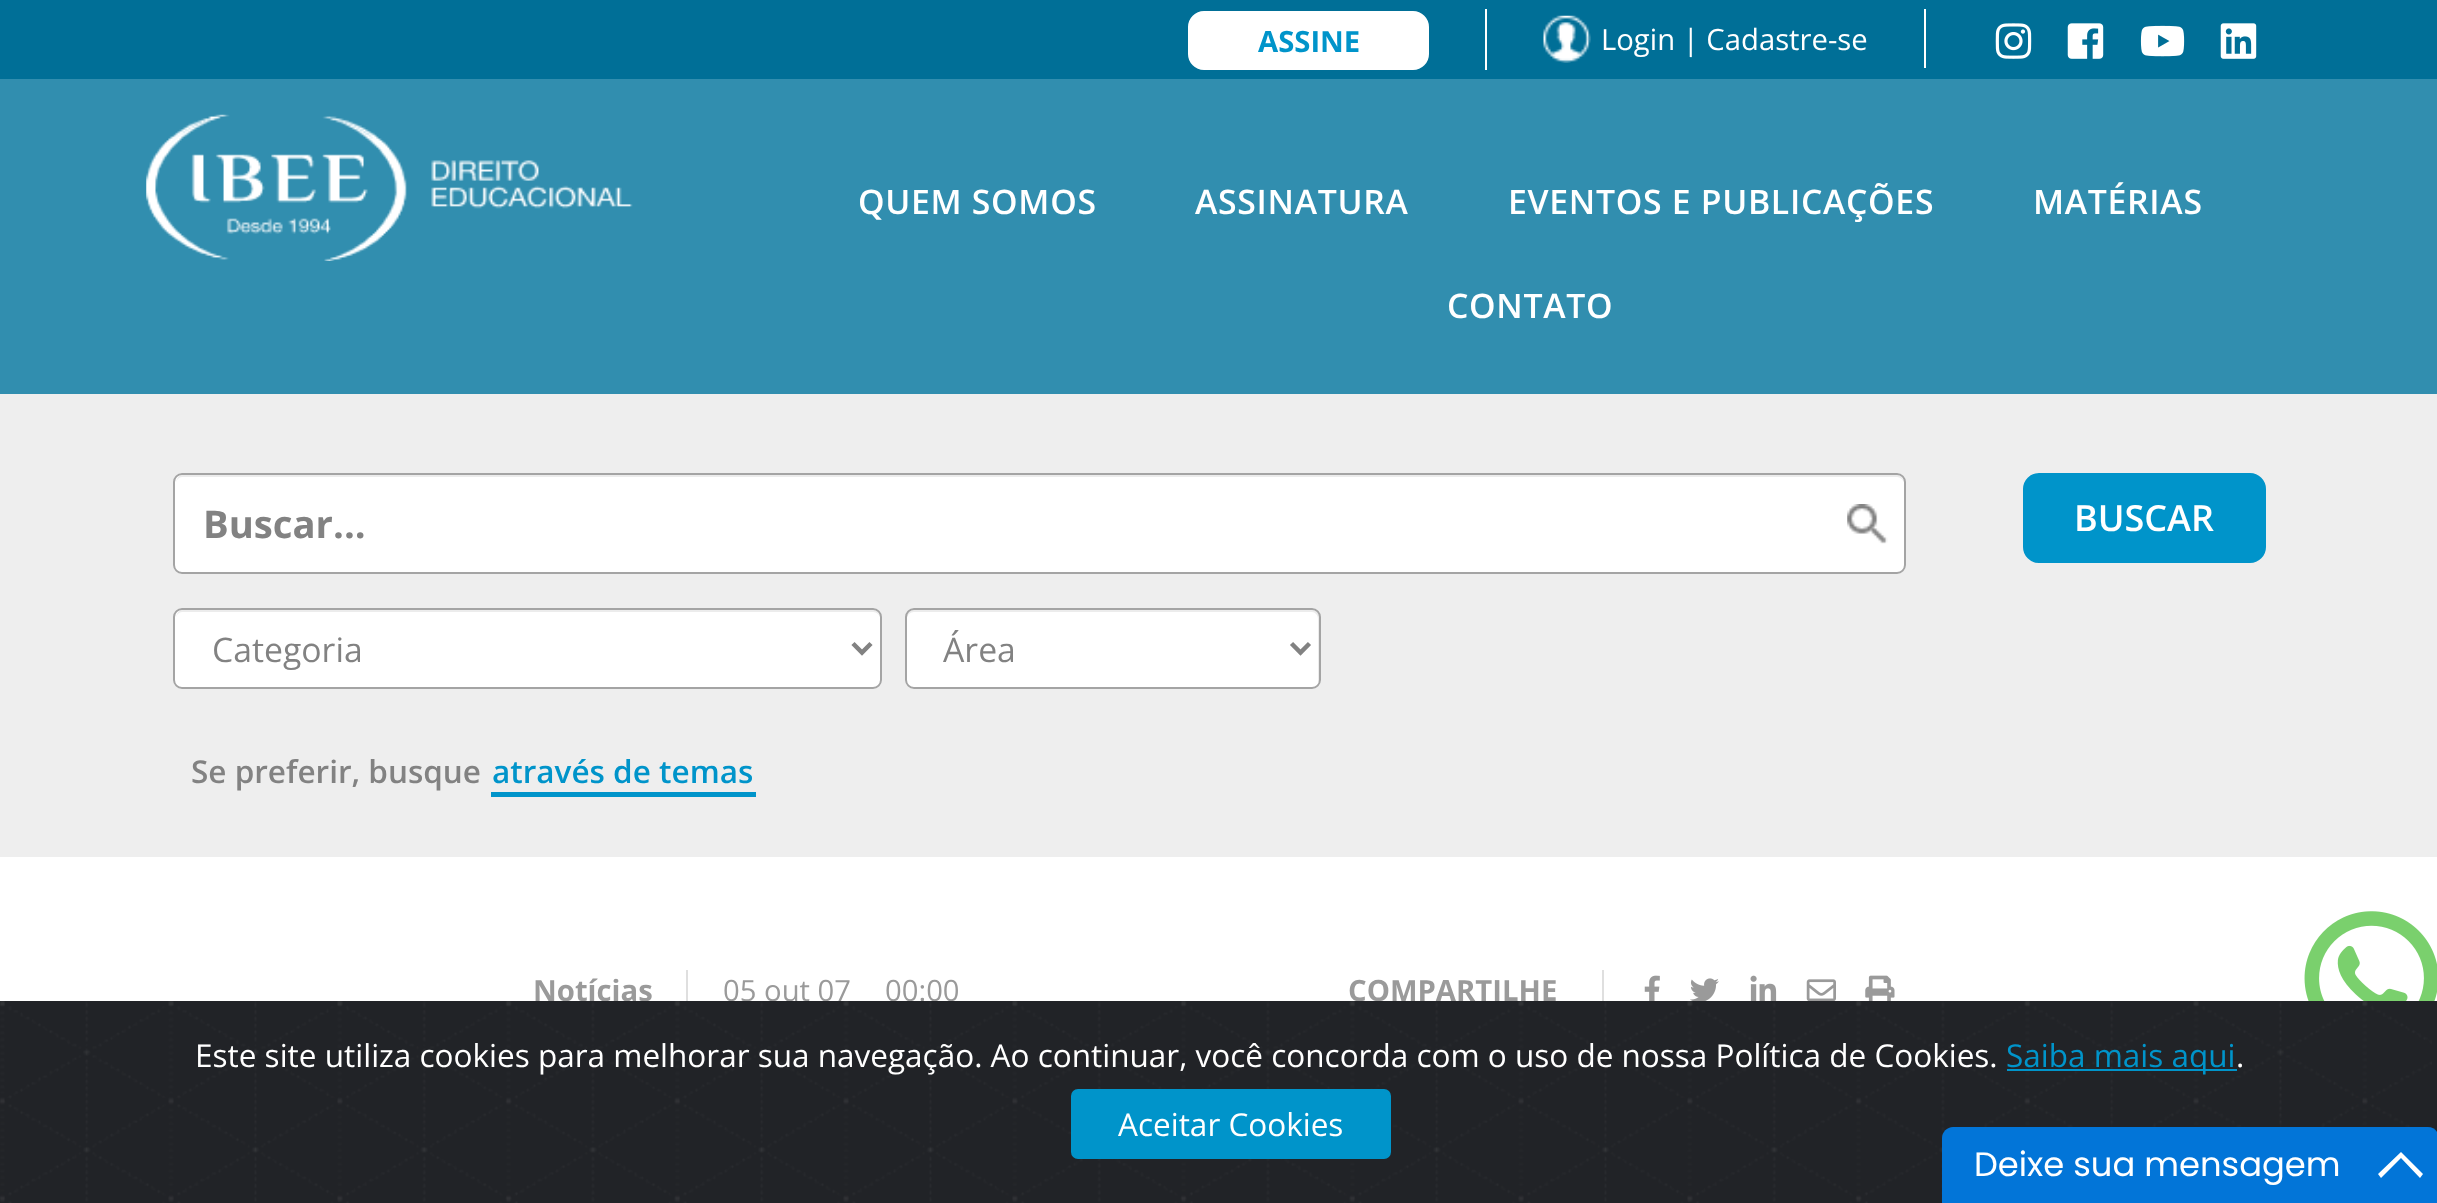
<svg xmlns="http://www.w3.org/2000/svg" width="2437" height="1203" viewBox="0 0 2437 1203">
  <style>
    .t1 { font: bold 29.25px Open Sans; fill: #0094ca; }
    .t2 { font: 29.25px Open Sans; fill: #fff; }
    .t3 { font: 600 33.75px Open Sans; letter-spacing: 0.7px; fill: #fff; }
    .t4 { font: bold 38.25px Open Sans; fill: #828282; }
    .t5 { font: 33.75px Open Sans; fill: #828282; }
    .t6 { font: 600 36px Open Sans; fill: #fff; }
    .t7 { font: 600 31.5px Open Sans; fill: #828282; }
    .t8 { font: 600 31.5px Open Sans; fill: #0094ca; }
    .t9 { font: bold 29.25px Open Sans; fill: #9a9a9a; }
    .t10 { font: 29.25px Open Sans; fill: #9a9a9a; }
    .t11 { font: 31.5px Open Sans; fill: #fff; }
    .t12 { font: 31.5px Open Sans; fill: #0094ca; }
    .t13 { font: 33.75px Poppins; fill: #fff; }
  </style>
  <rect width="100%" height="100%" fill="#fff"/>
  <rect x="0" y="0" width="2437" height="79" fill="#006f97"/>
  <rect x="1485" y="9" width="2" height="61" fill="#fff"/>
  <rect x="1189" y="12" width="239" height="57" rx="15" fill="#fff" stroke="#fff" stroke-width="2"/>
  <text x="1258" y="52" class="t1">ASSINE</text>
  <rect x="1924" y="9" width="2" height="59" fill="#fff"/>
  <image x="1543" y="15" width="48" height="48" href="images/1.png"/>
  <text x="1601" y="50" class="t2">Login | Cadastre-se</text>
  <image x="1995" y="23" width="37" height="36" href="images/2.png"/>
  <image x="2067" y="23" width="37" height="36" href="images/3.png"/>
  <image x="2140" y="25" width="45" height="32" href="images/4.png"/>
  <image x="2220" y="23" width="37" height="36" href="images/5.png"/>
  <rect x="0" y="79" width="2437" height="315" fill="#318eaf"/>
  <image x="146" y="114" width="487" height="147" href="images/6.png"/>
  <text x="858" y="214" class="t3">QUEM SOMOS</text>
  <text x="1195" y="214" class="t3">ASSINATURA</text>
  <text x="1508" y="214" class="t3">EVENTOS E PUBLICAÇÕES</text>
  <text x="2033" y="214" class="t3">MATÉRIAS</text>
  <text x="1447" y="318" class="t3">CONTATO</text>
  <rect x="0" y="394" width="2437" height="463" fill="#eee"/>
  <rect x="173" y="473" width="1733" height="101" rx="9" fill="#fff"/>
  <image x="1847" y="504" width="41" height="40" href="images/7.png"/>
  <path d="M182 477H1897C1900 477 1904 480 1904 484C1904 480 1902 475 1897 475H183C178 475 176 480 176 484C176 480 179 477 182 477Z" fill="#ececec"/>
  <rect x="174" y="474" width="1731" height="99" rx="8" fill="none" stroke="#a4a4a4" stroke-width="2"/>
  <text x="203" y="538" class="t4">Buscar...</text>
  <rect x="173" y="608" width="709" height="81" rx="9" fill="#fff"/>
  <path d="M182 612H873C877 612 880 615 880 619C880 615 878 610 873 610H183C178 610 176 615 176 619C176 615 179 612 182 612Z" fill="#ececec"/>
  <rect x="174" y="609" width="707" height="79" rx="8" fill="none" stroke="#a4a4a4" stroke-width="2"/>
  <path d="M853 643.5L862 652.5L871 643.5" fill="none" stroke="#828282" stroke-width="4.5"/>
  <text x="212" y="662" class="t5">Categoria</text>
  <rect x="905" y="608" width="416" height="81" rx="9" fill="#fff"/>
  <path d="M914 612H1312C1315 612 1318 615 1318 619V683C1319 682 1319 680 1319 679V617C1319 613 1316 610 1312 610H914C910 610 907 613 907 617V619C907 615 910 612 914 612Z" fill="#ececec"/>
  <rect x="906" y="609" width="414" height="79" rx="8" fill="none" stroke="#a4a4a4" stroke-width="2"/>
  <path d="M1291.5 643.5L1300.5 652.5L1309.5 643.5" fill="none" stroke="#828282" stroke-width="4.5"/>
  <text x="943" y="662" class="t5">Área</text>
  <rect x="2024" y="474" width="241" height="88" rx="15" fill="#0094ca" stroke="#0094ca" stroke-width="2"/>
  <text x="2074" y="531" class="t6">BUSCAR</text>
  <text x="191" y="783" class="t7">Se preferir, busque</text>
  <text x="492" y="783" class="t8">através de temas</text>
  <rect x="491" y="792" width="265" height="5" fill="#0094ca"/>
  <rect x="686" y="970" width="2" height="31" fill="#dfdfdf"/>
  <text x="533" y="1001" class="t9">Notícias</text>
  <text x="723" y="1001" class="t10">05 out 07</text>
  <text x="885" y="1001" class="t10">00:00</text>
  <text x="1348" y="1001" class="t9">COMPARTILHE</text>
  <rect x="1602" y="970" width="2" height="31" fill="#dfdfdf"/>
  <image x="1644" y="975" width="16" height="26" href="images/8.png"/>
  <image x="1690" y="978" width="29" height="23" href="images/9.png"/>
  <image x="1750" y="975" width="27" height="26" href="images/10.png"/>
  <image x="1806" y="979" width="30" height="22" href="images/11.png"/>
  <image x="1865" y="975" width="30" height="26" href="images/12.png"/>
  <image x="2304" y="911" width="133" height="90" href="images/13.png"/>
  <rect x="2432" y="1001" width="5" height="131" fill="#212327"/>
  <image x="0" y="1001" width="2432" height="202" href="images/14.png"/>
  <text x="195" y="1067" class="t11">Este site utiliza cookies para melhorar sua navegação. Ao continuar, você concorda com o uso de nossa Política de Cookies.</text>
  <rect x="2007" y="1069" width="230" height="2" fill="#0094ca"/>
  <text x="2006" y="1067" class="t12">Saiba mais aqui</text>
  <text x="2236" y="1067" class="t11">.</text>
  <rect x="1072" y="1090" width="318" height="68" rx="6" fill="#0094ca" stroke="#0094ca" stroke-width="2"/>
  <text x="1118" y="1136" class="t11">Aceitar Cookies</text>
  <path d="M1953 1127H2428C2434 1127 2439 1132 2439 1138V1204H1942V1138C1942 1132 1947 1127 1953 1127Z" fill="#0275d8"/>
  <text x="1974" y="1176" class="t13">Deixe sua mensagem</text>
  <path d="M2401 1152L2423 1174L2420 1178L2401 1158L2381 1178L2378 1174Z" fill="#fff"/>
</svg>
